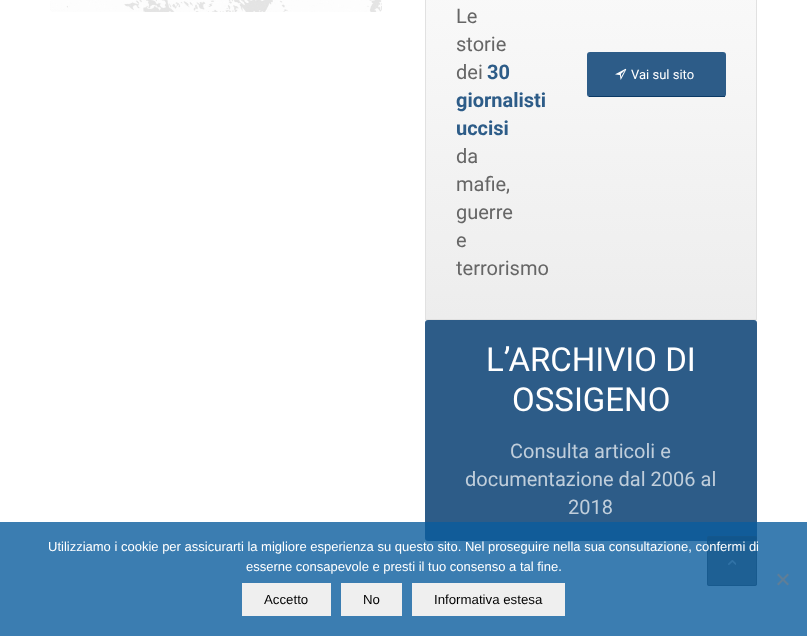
<svg xmlns="http://www.w3.org/2000/svg" width="807" height="636" viewBox="0 0 807 636">
  <style>
    .t1 { font: 20px Roboto; fill: #666; }
    .t2 { font: bold 20px Roboto; fill: #2d5c88; }
    .t3 { font: 13px Roboto; fill: #fff; }
    .t4 { font: 33px Roboto; fill: #fff; }
    .t5 { font: 20px Roboto; fill: #c0cedb; }
    .t6 { font: 13px Liberation Sans; fill: #fff; }
    .t7 { font: 13.25px Liberation Sans; fill: #000; }
  </style>
  <defs>
    <linearGradient id="g1" gradientUnits="userSpaceOnUse" x1="591" y1="319" x2="591" y2="-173"><stop offset="0" stop-color="#ededed"/><stop offset="1" stop-color="#fff"/></linearGradient>
  </defs>
  <rect width="100%" height="100%" fill="#fff"/>
  <image x="50" y="0" width="332" height="12" href="images/1.png"/>
  <rect x="426" y="0" width="330" height="319" fill="url(#g1)"/>
  <rect x="425.5" y="-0.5" width="331" height="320" fill="none" stroke="#e1e1e1"/>
  <text x="456" y="23" class="t1">Le</text>
  <text x="456" y="51" class="t1">storie</text>
  <text x="456" y="79" class="t1">dei</text>
  <text x="487" y="79" class="t2">30</text>
  <text x="456" y="107" class="t2">giornalisti</text>
  <text x="456" y="135" class="t2">uccisi</text>
  <text x="456" y="163" class="t1">da</text>
  <text x="456" y="191" class="t1">mafie,</text>
  <text x="456" y="219" class="t1">guerre</text>
  <text x="456" y="247" class="t1">e</text>
  <text x="456" y="275" class="t1">terrorismo</text>
  <rect x="587" y="52" width="139" height="45" rx="3" fill="#2d5c88"/>
  <rect x="589" y="96" width="136" height="1" fill="#0b3a66"/>
  <image x="615" y="68" width="12" height="12" href="images/2.png"/>
  <text x="631" y="79" class="t3">Vai sul sito</text>
  <rect x="425" y="320" width="332" height="221" rx="3" fill="#2d5c88"/>
  <text x="486" y="371" class="t4">L’ARCHIVIO DI</text>
  <text x="512" y="411" class="t4">OSSIGENO</text>
  <text x="510" y="458" class="t5">Consulta articoli e</text>
  <text x="465" y="486" class="t5">documentazione dal 2006 al</text>
  <text x="568" y="514" class="t5">2018</text>
  <rect x="707" y="536" width="50" height="50" rx="2" fill="#333333b3"/>
  <rect x="707.5" y="536.5" width="49" height="49" rx="1.5" fill="none" stroke="#444444b3"/>
  <image x="728" y="560" width="8" height="5" href="images/3.png"/>
  <rect x="0" y="522" width="807" height="114" fill="#0a5c9dcc"/>
  <text x="48" y="551" class="t6">Utilizziamo i cookie per assicurarti la migliore esperienza su questo sito. Nel proseguire nella sua consultazione, confermi di</text>
  <text x="246" y="571" class="t6">esserne consapevole e presti il tuo consenso a tal fine.</text>
  <path d="M787.5 573.5L789 575L778.5 585.5L777 584Z" fill="#5e7e98"/>
  <path d="M777 575L778.5 573.5L789 584L787.5 585.5Z" fill="#5e7e98"/>
  <rect x="242" y="583" width="89" height="33" fill="#efefef"/>
  <text x="264" y="604" class="t7">Accetto</text>
  <rect x="341" y="583" width="61" height="33" fill="#efefef"/>
  <text x="363" y="604" class="t7">No</text>
  <rect x="412" y="583" width="153" height="33" fill="#efefef"/>
  <text x="434" y="604" class="t7">Informativa estesa</text>
</svg>
